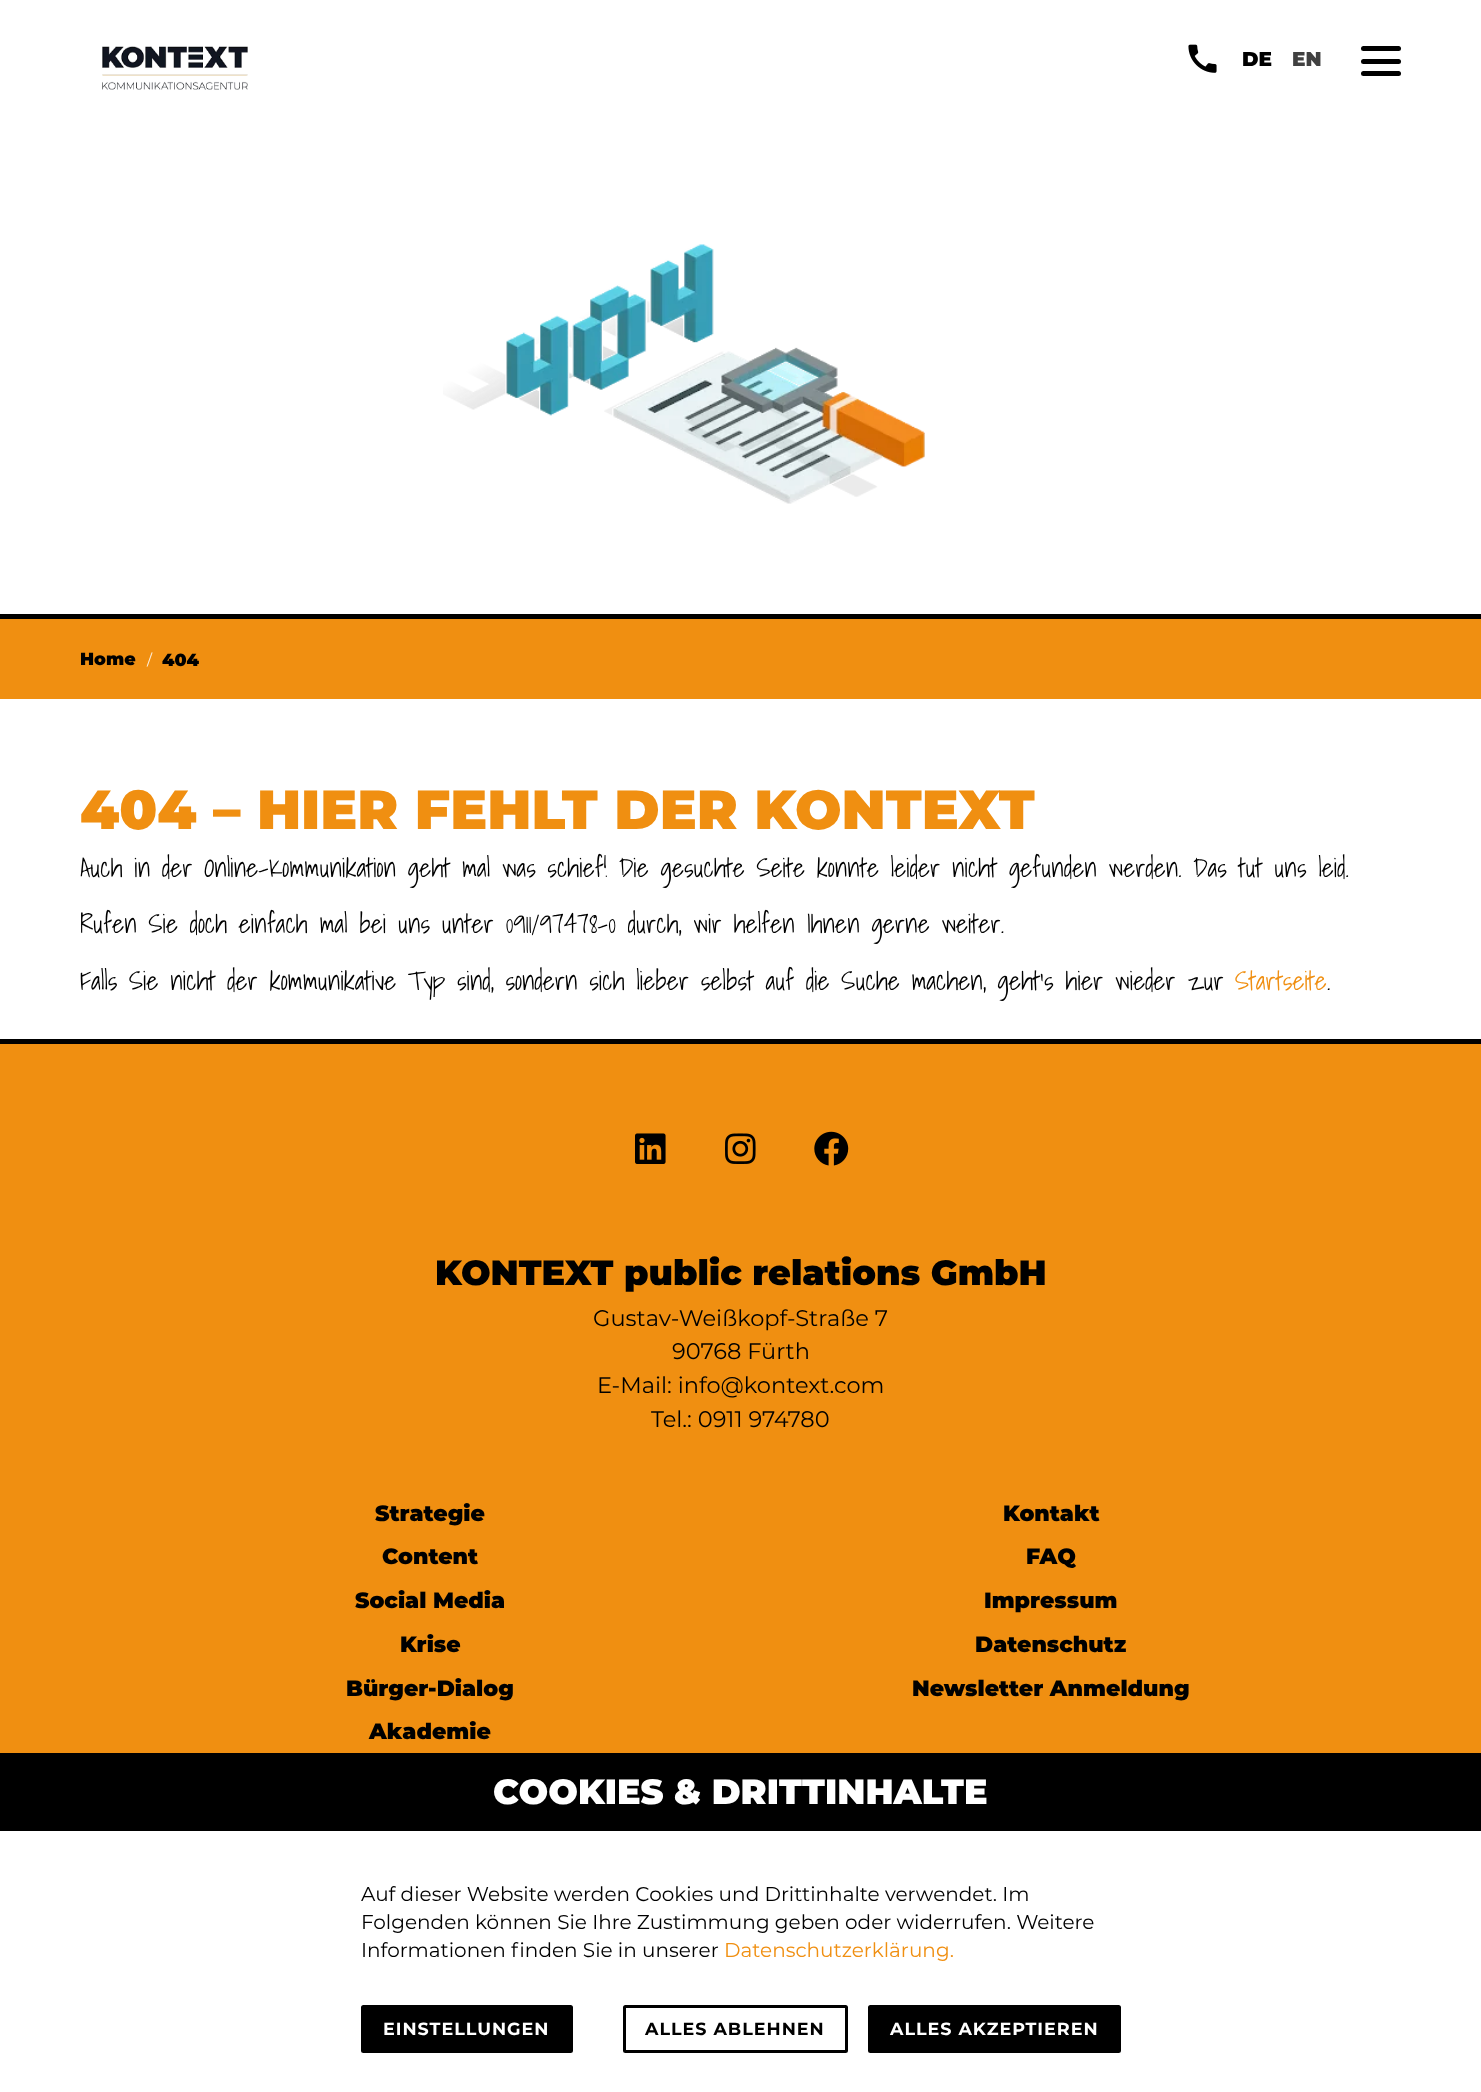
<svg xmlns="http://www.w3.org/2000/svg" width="1481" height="2092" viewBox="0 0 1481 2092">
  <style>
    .t1 { font: 900 20px Montserrat; fill: #000; }
    .t2 { font: 900 20px Montserrat; fill: #404040; }
    .t3 { font: 900 17.5px Montserrat; fill: #000; }
    .t4 { font: 15px Montserrat; fill: #fdf1e1; }
    .t5 { font: 900 55px Montserrat; fill: #f08f11; }
    .t6 { font: 300 26px Shadows Into Light; fill: #000; }
    .t7 { font: 300 26px Shadows Into Light; fill: #f08f11; }
    .t8 { font: 900 35px Montserrat; fill: #000; }
    .t9 { font: 22.5px Montserrat; fill: #000; }
    .t10 { font: 900 22px Montserrat; fill: #000; }
    .t11 { font: 900 35px Montserrat; fill: #fff; }
    .t12 { font: 20px Montserrat; fill: #000; }
    .t13 { font: 20px Montserrat; fill: #f08f11; }
    .t14 { font: bold 17.5px Montserrat; letter-spacing: 1px; fill: #fff; }
    .t15 { font: bold 17.5px Montserrat; letter-spacing: 1px; fill: #000; }
  </style>
  <rect width="100%" height="100%" fill="#fff"/>
  <image x="102" y="46" width="146" height="44" href="images/1.png"/>
  <rect x="1361" y="46" width="40" height="5" rx="2.5" fill="#000"/>
  <rect x="1361" y="59" width="40" height="5" rx="2.5" fill="#000"/>
  <rect x="1361" y="71" width="40" height="5" rx="2.5" fill="#000"/>
  <image x="1188" y="44" width="29" height="29" href="images/2.png"/>
  <text x="1242" y="66" class="t1">DE</text>
  <text x="1292" y="66" class="t2">EN</text>
  <rect x="0" y="614" width="1481" height="5" fill="#000"/>
  <image x="443" y="244" width="482" height="260" href="images/3.png"/>
  <rect x="0" y="619" width="1481" height="80" fill="#f08f11"/>
  <text x="80" y="665" class="t3">Home</text>
  <text x="147" y="665" class="t4">/</text>
  <text x="162" y="666" class="t3">404</text>
  <text x="80" y="829" class="t5">404 – HIER FEHLT DER KONTEXT</text>
  <text x="80" y="877" class="t6">Auch in der Online-Kommunikation geht mal was schief! Die gesuchte Seite konnte leider nicht gefunden werden. Das tut uns leid.</text>
  <text x="80" y="933" class="t6">Rufen Sie doch einfach mal bei uns unter 0911/97478-0 durch, wir helfen Ihnen gerne weiter.</text>
  <text x="80" y="990" class="t6">Falls Sie nicht der kommunikative Typ sind, sondern sich lieber selbst auf die Suche machen, geht's hier wieder zur</text>
  <text x="1235" y="990" class="t7">Startseite</text>
  <text x="1327" y="990" class="t6">.</text>
  <rect x="0" y="1044" width="1481" height="709" fill="#f08f11"/>
  <rect x="0" y="1039" width="1481" height="5" fill="#000"/>
  <image x="635" y="1133" width="31" height="31" href="images/4.png"/>
  <image x="725" y="1133" width="31" height="31" href="images/5.png"/>
  <image x="814" y="1131" width="35" height="35" href="images/6.png"/>
  <text x="435" y="1285" class="t8">KONTEXT public relations GmbH</text>
  <text x="593" y="1326" class="t9">Gustav-Weißkopf-Straße 7</text>
  <text x="672" y="1359" class="t9">90768 Fürth</text>
  <text x="597" y="1393" class="t9">E-Mail: info@kontext.com</text>
  <text x="651" y="1427" class="t9">Tel.: 0911 974780</text>
  <text x="375" y="1521" class="t10">Strategie</text>
  <text x="382" y="1564" class="t10">Content</text>
  <text x="355" y="1608" class="t10">Social Media</text>
  <text x="400" y="1652" class="t10">Krise</text>
  <text x="346" y="1696" class="t10">Bürger-Dialog</text>
  <text x="369" y="1739" class="t10">Akademie</text>
  <text x="1003" y="1521" class="t10">Kontakt</text>
  <text x="1026" y="1564" class="t10">FAQ</text>
  <text x="984" y="1608" class="t10">Impressum</text>
  <text x="975" y="1652" class="t10">Datenschutz</text>
  <text x="912" y="1696" class="t10">Newsletter Anmeldung</text>
  <rect x="0" y="1753" width="1481" height="78" fill="#000"/>
  <text x="493" y="1804" class="t11">COOKIES &amp; DRITTINHALTE</text>
  <text x="361" y="1901" class="t12">Auf dieser Website werden Cookies und Drittinhalte verwendet. Im</text>
  <text x="361" y="1929" class="t12">Folgenden können Sie Ihre Zustimmung geben oder widerrufen. Weitere</text>
  <text x="361" y="1957" class="t12">Informationen finden Sie in unserer</text>
  <text x="724" y="1957" class="t13">Datenschutzerklärung.</text>
  <rect x="362.5" y="2006.5" width="209" height="45" rx="1" fill="#000" stroke="#000" stroke-width="3"/>
  <text x="383" y="2035" class="t14">EINSTELLUNGEN</text>
  <rect x="624.5" y="2006.5" width="222" height="45" rx="1" fill="none" stroke="#000" stroke-width="3"/>
  <text x="645" y="2035" class="t15">ALLES ABLEHNEN</text>
  <rect x="869.5" y="2006.5" width="250" height="45" rx="1" fill="#000" stroke="#000" stroke-width="3"/>
  <text x="890" y="2035" class="t14">ALLES AKZEPTIEREN</text>
</svg>
